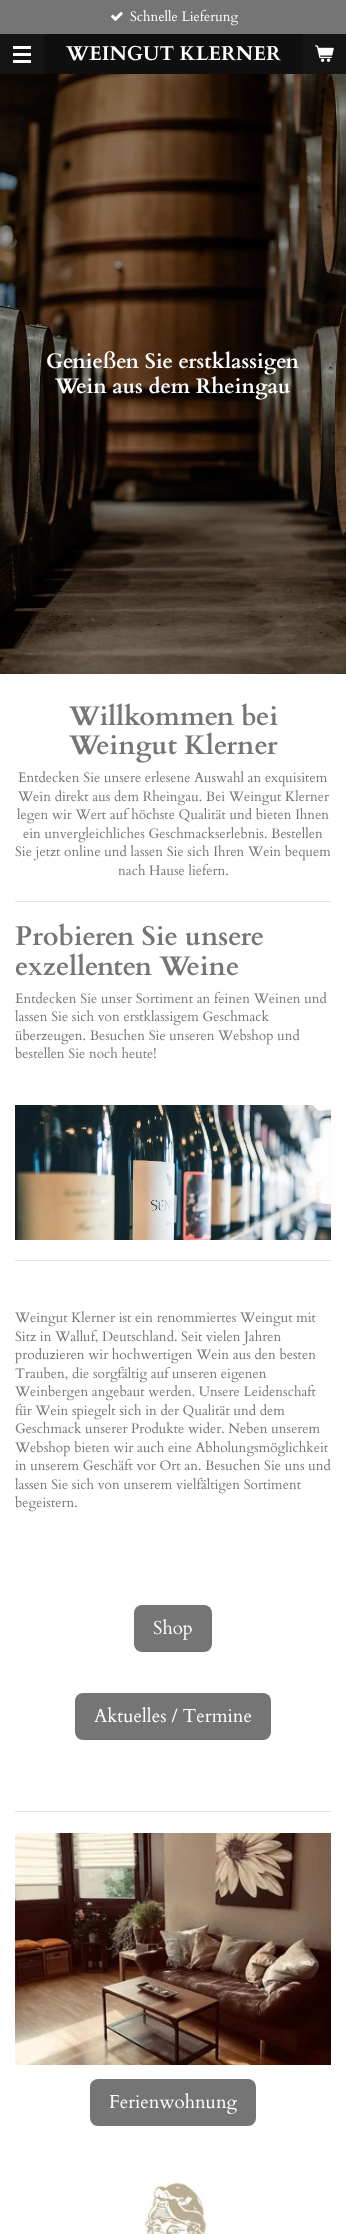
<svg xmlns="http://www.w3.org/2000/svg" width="346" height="2234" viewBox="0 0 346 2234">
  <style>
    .t1 { font: 13.7px Cardo; fill: #fff; }
    .t2 { font: bold 20px Cardo; fill: #fff; }
    .t3 { font: bold 21px Cardo; fill: #fff; }
    .t4 { font: bold 27px Cardo; fill: #757575; }
    .t5 { font: 13.7px Cardo; fill: #757575; }
    .t6 { font: 18.75px Cardo; fill: #fff; }
  </style>
  <rect width="100%" height="100%" fill="#0f0f0f"/>
  <rect x="0" y="0" width="346" height="34" fill="#757575"/>
  <image x="111" y="12" width="12" height="9" href="images/1.png"/>
  <text x="130" y="21" class="t1">Schnelle Lieferung</text>
  <rect x="0" y="34" width="44" height="40" fill="#141414"/>
  <rect x="13" y="53" width="18" height="3" fill="#fff"/>
  <rect x="13" y="46" width="18" height="3" fill="#fff"/>
  <rect x="13" y="60" width="18" height="3" fill="#fff"/>
  <text x="66" y="60" class="t2">WEINGUT KLERNER</text>
  <rect x="302" y="34" width="44" height="40" fill="#141414"/>
  <image x="315" y="45" width="19" height="17" href="images/2.png"/>
  <image x="0" y="74" width="346" height="600" href="images/3.png"/>
  <text x="46" y="368" class="t3">Genießen Sie erstklassigen</text>
  <text x="55" y="393" class="t3">Wein aus dem Rheingau</text>
  <rect x="0" y="674" width="346" height="1560" fill="#fff"/>
  <text x="69" y="725" class="t4">Willkommen bei</text>
  <text x="69" y="754" class="t4">Weingut Klerner</text>
  <text x="18" y="782" class="t5">Entdecken Sie unsere erlesene Auswahl an exquisitem</text>
  <text x="18" y="801" class="t5">Wein direkt aus dem Rheingau. Bei Weingut Klerner</text>
  <text x="17" y="819" class="t5">legen wir Wert auf höchste Qualität und bieten Ihnen</text>
  <text x="23" y="838" class="t5">ein unvergleichliches Geschmackserlebnis. Bestellen</text>
  <text x="15" y="856" class="t5">Sie jetzt online und lassen Sie sich Ihren Wein bequem</text>
  <text x="118" y="875" class="t5">nach Hause liefern.</text>
  <rect x="15" y="901" width="316" height="1" fill="#e3e3e3"/>
  <text x="15" y="945" class="t4">Probieren Sie unsere</text>
  <text x="15" y="975" class="t4">exzellenten Weine</text>
  <text x="15" y="1003" class="t5">Entdecken Sie unser Sortiment an feinen Weinen und</text>
  <text x="15" y="1021" class="t5">lassen Sie sich von erstklassigem Geschmack</text>
  <text x="15" y="1040" class="t5">überzeugen. Besuchen Sie unseren Webshop und</text>
  <text x="15" y="1058" class="t5">bestellen Sie noch heute!</text>
  <image x="15" y="1105" width="316" height="135" href="images/4.png"/>
  <rect x="15" y="1260" width="316" height="1" fill="#e3e3e3"/>
  <text x="15" y="1322" class="t5">Weingut Klerner ist ein renommiertes Weingut mit</text>
  <text x="15" y="1341" class="t5">Sitz in Walluf, Deutschland. Seit vielen Jahren</text>
  <text x="15" y="1359" class="t5">produzieren wir hochwertigen Wein aus den besten</text>
  <text x="15" y="1378" class="t5">Trauben, die sorgfältig auf unseren eigenen</text>
  <text x="15" y="1396" class="t5">Weinbergen angebaut werden. Unsere Leidenschaft</text>
  <text x="15" y="1415" class="t5">für Wein spiegelt sich in der Qualität und dem</text>
  <text x="15" y="1433" class="t5">Geschmack unserer Produkte wider. Neben unserem</text>
  <text x="15" y="1452" class="t5">Webshop bieten wir auch eine Abholungsmöglichkeit</text>
  <text x="15" y="1470" class="t5">in unserem Geschäft vor Ort an. Besuchen Sie uns und</text>
  <text x="15" y="1489" class="t5">lassen Sie sich von unserem vielfältigen Sortiment</text>
  <text x="15" y="1507" class="t5">begeistern.</text>
  <rect x="134" y="1605" width="78" height="47" rx="8" fill="#757575"/>
  <text x="153" y="1634" class="t6">Shop</text>
  <rect x="75" y="1693" width="196" height="47" rx="8" fill="#757575"/>
  <text x="94" y="1722" class="t6">Aktuelles / Termine</text>
  <rect x="15" y="1811" width="316" height="1" fill="#e3e3e3"/>
  <image x="15" y="1833" width="316" height="232" href="images/5.png"/>
  <rect x="90" y="2079" width="166" height="47" rx="8" fill="#757575"/>
  <text x="109" y="2108" class="t6">Ferienwohnung</text>
  <image x="144" y="2182" width="64" height="52" href="images/6.png"/>
</svg>
